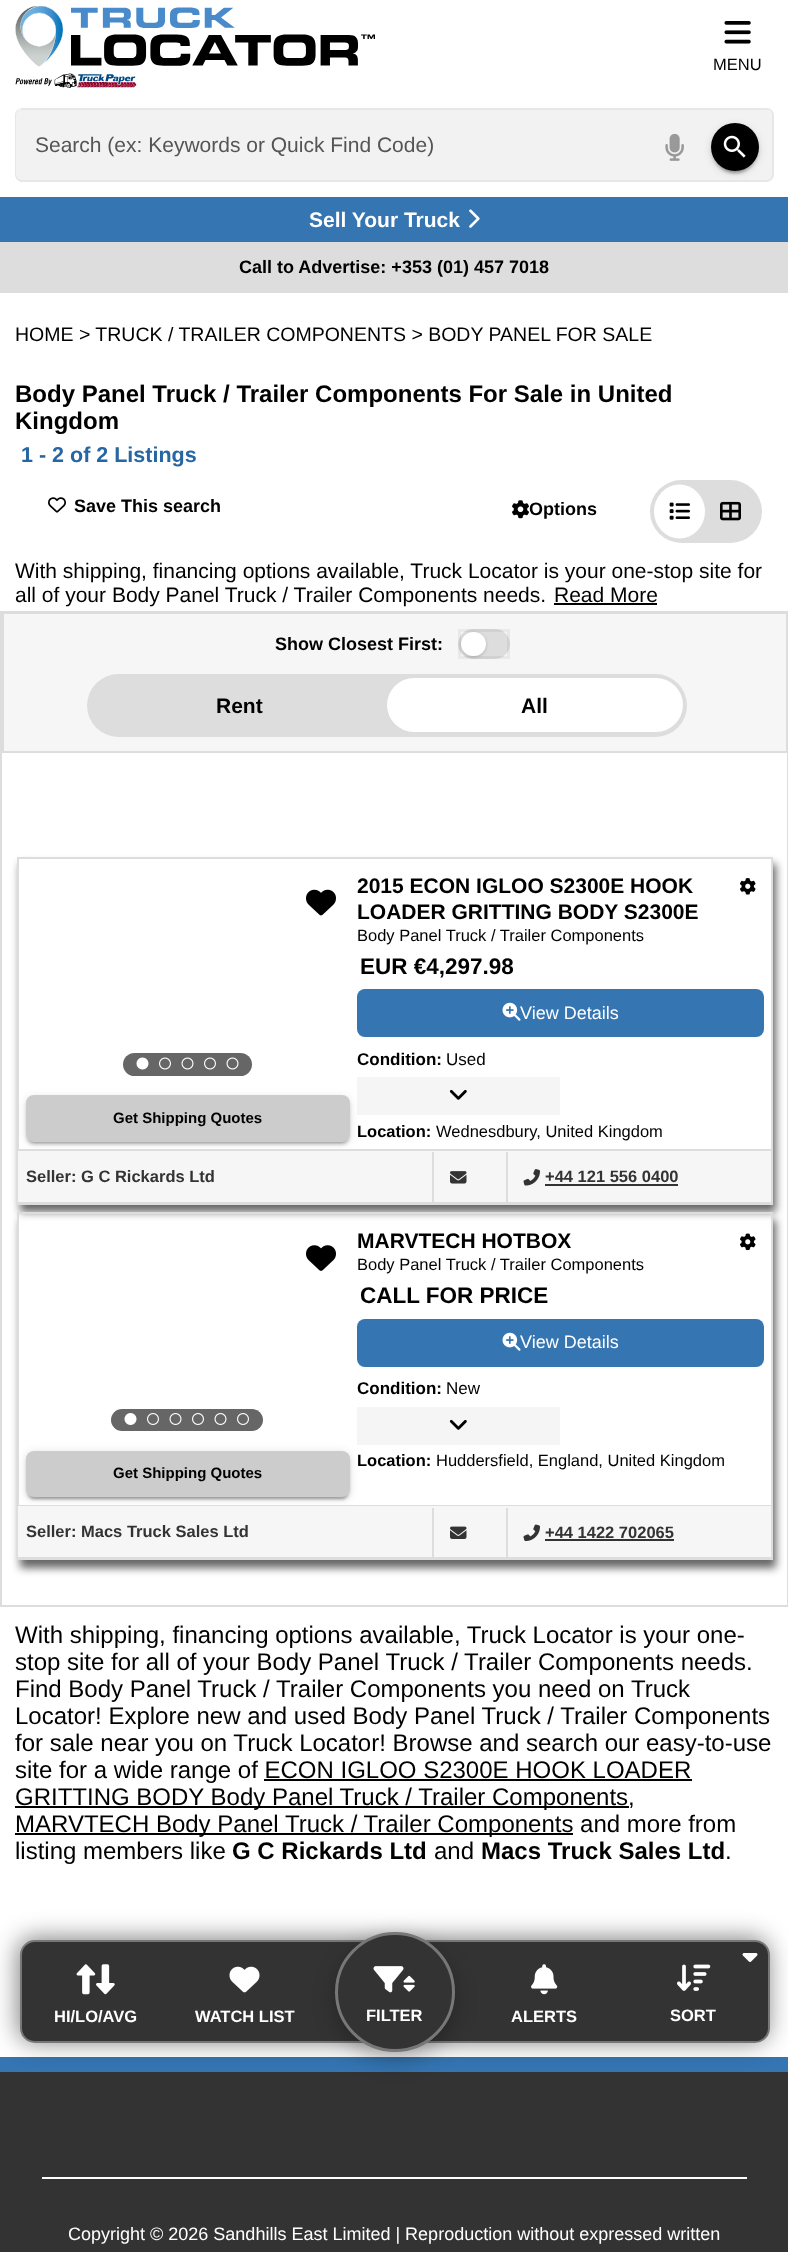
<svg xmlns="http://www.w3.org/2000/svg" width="788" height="2252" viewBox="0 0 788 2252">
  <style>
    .t1 { font: 16.5px Liberation Sans; fill: #000; }
    .t2 { font: 21px Liberation Sans; fill: #555; }
    .t3 { font: bold 21px Liberation Sans; fill: #fff; }
    .t4 { font: bold 18px Liberation Sans; fill: #000; }
    .t5 { font: 19.5px Liberation Sans; fill: #000; }
    .t6 { font: bold 24px Liberation Sans; fill: #000; }
    .t7 { font: bold 21.5px Liberation Sans; fill: #2566a3; }
    .t8 { font: 21px Liberation Sans; fill: #000; }
    .t9 { font: bold 21px Liberation Sans; fill: #000; }
    .t10 { font: bold 15px Liberation Sans; fill: #000; }
    .t11 { font: bold 22.5px Liberation Sans; fill: #000; }
    .t12 { font: 18px Liberation Sans; fill: #fff; }
    .t13 { font: bold 17px Liberation Sans; fill: #000; }
    .t14 { font: 17px Liberation Sans; fill: #000; }
    .t15 { font: bold 16.5px Liberation Sans; fill: #000; }
    .t16 { font: bold 16.5px Liberation Sans; fill: #333; }
    .t17 { font: 24px Liberation Sans; fill: #000; }
    .t18 { font: bold 16.5px Liberation Sans; fill: #fff; }
  </style>
  <defs>
    <clipPath id="clip1"><path d="M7 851H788V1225H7ZM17 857H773V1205H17Z" clip-rule="evenodd"/></clipPath>
    <clipPath id="clip2"><path d="M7 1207H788V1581H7ZM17 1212H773V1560H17Z" clip-rule="evenodd"/></clipPath>
  </defs>
  <rect width="100%" height="100%" fill="#fff"/>
  <image x="15" y="6" width="360" height="82" href="images/1.png"/>
  <image x="724" y="21" width="27" height="23" href="images/2.png"/>
  <text x="713" y="70" class="t1">MENU</text>
  <rect x="15" y="108" width="759" height="74" rx="8" fill="#f2f2f2"/>
  <path d="M22 108H766C771 108 774 111 774 116V174C774 178 771 182 766 182H22C18 182 15 178 15 174V116C15 111 18 108 22 108ZM22 108H766C770 108 772 111 772 116V174C772 177 770 180 766 180H22C19 180 16 177 16 174V116C16 111 19 108 22 108Z" fill="#e6e7e8" fill-rule="evenodd"/>
  <path d="M22 108H21V110H770V109C769 109 768 108 766 108Z" fill="#e6e7e8"/>
  <text x="35" y="152" class="t2">Search (ex: Keywords or Quick Find Code)</text>
  <image x="665" y="133" width="19" height="28" href="images/3.png"/>
  <rect x="711" y="125" width="48" height="48" rx="24" fill="#0000001f" filter="blur(4px)"/>
  <rect x="711" y="126" width="48" height="48" rx="24" fill="#00000024" filter="blur(1.5px)"/>
  <rect x="714" y="131" width="42" height="42" rx="21" fill="#00000033" filter="blur(1px)"/>
  <circle cx="735" cy="147" r="24" fill="#000"/>
  <image x="723" y="135" width="23" height="23" href="images/4.png"/>
  <rect x="0" y="197" width="788" height="45" fill="#3475b2"/>
  <text x="309" y="227" class="t3">Sell Your Truck</text>
  <image x="469" y="209" width="11" height="19" href="images/5.png"/>
  <rect x="0" y="242" width="788" height="51" fill="#ddd"/>
  <text x="239" y="273" class="t4">Call to Advertise: +353 (01) 457 7018</text>
  <text x="15" y="341" class="t5">HOME &gt; TRUCK / TRAILER COMPONENTS &gt; BODY PANEL FOR SALE</text>
  <text x="15" y="402" class="t6">Body Panel Truck / Trailer Components For Sale in United</text>
  <text x="15" y="429" class="t6">Kingdom</text>
  <text x="21" y="462" class="t7">1 - 2 of 2 Listings</text>
  <image x="48" y="497" width="18" height="16" href="images/6.png"/>
  <text x="74" y="512" class="t4">Save This search</text>
  <image x="512" y="500" width="17" height="19" href="images/7.png"/>
  <text x="529" y="515" class="t4">Options</text>
  <rect x="650" y="480" width="112" height="63" rx="31.5" fill="#ddd"/>
  <ellipse cx="679.5" cy="511.5" rx="25.5" ry="27" fill="#fff"/>
  <image x="669" y="502" width="21" height="18" href="images/8.png"/>
  <image x="720" y="501" width="21" height="20" href="images/9.png"/>
  <text x="15" y="578" class="t8">With shipping, financing options available, Truck Locator is your one-stop site for</text>
  <text x="15" y="602" class="t8">all of your Body Panel Truck / Trailer Components needs.</text>
  <text x="554" y="602" class="t8">Read More</text>
  <rect x="554" y="603" width="103" height="2" fill="#000"/>
  <rect x="1" y="612" width="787" height="994" fill="none" stroke="#ddd" stroke-width="2"/>
  <rect x="3" y="613" width="784" height="139" fill="#f6f6f6" stroke="#ddd" stroke-width="2"/>
  <text x="275" y="650" class="t4">Show Closest First:</text>
  <rect x="458" y="629" width="52" height="30" rx="15" fill="#ddd"/>
  <rect x="459.5" y="630.5" width="49" height="27" fill="none" stroke="#0000000d" stroke-width="3"/>
  <rect x="461" y="633" width="25" height="24" rx="12" fill="#00000033" filter="blur(1.5px)"/>
  <rect x="461" y="632" width="25" height="24" rx="12" fill="#fff"/>
  <rect x="87" y="674" width="600" height="63" rx="31.5" fill="#ddd"/>
  <text x="216" y="713" class="t9">Rent</text>
  <rect x="387" y="678" width="296" height="54" rx="27" fill="#fff"/>
  <text x="521" y="713" class="t9">All</text>
  <g clip-path="url(#clip1)">
    <rect x="20" y="864" width="756" height="348" fill="#666" filter="blur(4px)"/>
  </g>
  <rect x="18" y="858" width="754" height="346" fill="none" stroke="#ddd" stroke-width="2"/>
  <image x="306" y="889" width="30" height="27" href="images/10.png"/>
  <rect x="123" y="1053" width="129" height="23" rx="11.5" fill="#666"/>
  <image x="136" y="1057" width="13" height="13" href="images/11.png"/>
  <image x="159" y="1057" width="12" height="13" href="images/12.png"/>
  <image x="181" y="1057" width="13" height="13" href="images/13.png"/>
  <image x="204" y="1057" width="12" height="13" href="images/12.png"/>
  <image x="226" y="1057" width="13" height="13" href="images/13.png"/>
  <rect x="357" y="1077" width="203" height="38" fill="#f5f5f5"/>
  <rect x="26" y="1097" width="324" height="46" rx="8" fill="#0000001f" filter="blur(4px)"/>
  <rect x="26" y="1098" width="324" height="47" rx="8" fill="#00000024" filter="blur(1.5px)"/>
  <rect x="29" y="1103" width="318" height="40" rx="5" fill="#00000033" filter="blur(1px)"/>
  <rect x="26" y="1095" width="324" height="47" rx="8" fill="#ccc"/>
  <text x="113" y="1123" class="t10">Get Shipping Quotes</text>
  <text x="357" y="893" class="t9">2015 ECON IGLOO S2300E HOOK</text>
  <text x="357" y="919" class="t9">LOADER GRITTING BODY S2300E</text>
  <text x="357" y="941" class="t1">Body Panel Truck / Trailer Components</text>
  <image x="740" y="878" width="16" height="17" href="images/14.png"/>
  <text x="360" y="974" class="t11">EUR €4,297.98</text>
  <rect x="357" y="989" width="407" height="48" rx="8" fill="#3475b2"/>
  <image x="502" y="1002" width="19" height="19" href="images/15.png"/>
  <text x="520" y="1019" class="t12">View Details</text>
  <text x="357" y="1065" class="t13">Condition:</text>
  <text x="446" y="1065" class="t14">Used</text>
  <image x="449" y="1089" width="18" height="11" href="images/16.png"/>
  <text x="357" y="1137" class="t15">Location:</text>
  <text x="436" y="1137" class="t1">Wednesdbury, United Kingdom</text>
  <rect x="18" y="1149" width="753" height="2" fill="#ddd"/>
  <rect x="18" y="1151" width="753" height="51" fill="#f6f6f6"/>
  <rect x="18" y="1202" width="753" height="1" fill="#ddd"/>
  <text x="26" y="1182" class="t16">Seller: G C Rickards Ltd</text>
  <rect x="506" y="1152" width="2" height="50" fill="#ddd"/>
  <rect x="432" y="1152" width="2" height="50" fill="#ddd"/>
  <image x="450" y="1171" width="17" height="13" href="images/17.png"/>
  <image x="523" y="1169" width="17" height="17" href="images/18.png"/>
  <text x="545" y="1182" class="t16">+44 121 556 0400</text>
  <rect x="545" y="1184" width="133" height="2" fill="#333"/>
  <g clip-path="url(#clip2)">
    <rect x="20" y="1220" width="756" height="348" fill="#666" filter="blur(4px)"/>
  </g>
  <rect x="18" y="1213" width="754" height="346" fill="none" stroke="#ddd" stroke-width="2"/>
  <text x="357" y="1248" class="t9">MARVTECH HOTBOX</text>
  <text x="357" y="1270" class="t1">Body Panel Truck / Trailer Components</text>
  <image x="740" y="1233" width="16" height="18" href="images/19.png"/>
  <text x="360" y="1303" class="t11">CALL FOR PRICE</text>
  <rect x="357" y="1319" width="407" height="48" rx="8" fill="#3475b2"/>
  <image x="502" y="1332" width="19" height="19" href="images/15.png"/>
  <text x="520" y="1348" class="t12">View Details</text>
  <text x="357" y="1394" class="t13">Condition:</text>
  <text x="446" y="1394" class="t14">New</text>
  <rect x="357" y="1407" width="203" height="38" fill="#f5f5f5"/>
  <image x="449" y="1419" width="18" height="11" href="images/16.png"/>
  <text x="357" y="1466" class="t15">Location:</text>
  <text x="436" y="1466" class="t1">Huddersfield, England, United Kingdom</text>
  <image x="306" y="1245" width="30" height="26" href="images/20.png"/>
  <rect x="111" y="1409" width="152" height="22" rx="11" fill="#666"/>
  <image x="124" y="1413" width="13" height="12" href="images/21.png"/>
  <image x="147" y="1413" width="12" height="12" href="images/22.png"/>
  <image x="169" y="1413" width="13" height="12" href="images/23.png"/>
  <image x="192" y="1413" width="12" height="12" href="images/22.png"/>
  <image x="214" y="1413" width="13" height="12" href="images/23.png"/>
  <image x="237" y="1413" width="12" height="12" href="images/22.png"/>
  <rect x="26" y="1452" width="324" height="47" rx="8" fill="#0000001f" filter="blur(4px)"/>
  <rect x="26" y="1454" width="324" height="46" rx="8" fill="#00000024" filter="blur(1.5px)"/>
  <rect x="29" y="1458" width="318" height="41" rx="5" fill="#00000033" filter="blur(1px)"/>
  <rect x="26" y="1451" width="324" height="46" rx="8" fill="#ccc"/>
  <text x="113" y="1478" class="t10">Get Shipping Quotes</text>
  <rect x="18" y="1505" width="753" height="1" fill="#ddd"/>
  <rect x="18" y="1506" width="753" height="51" fill="#f6f6f6"/>
  <rect x="18" y="1557" width="753" height="1" fill="#ddd"/>
  <text x="26" y="1537" class="t16">Seller: Macs Truck Sales Ltd</text>
  <rect x="506" y="1508" width="2" height="49" fill="#ddd"/>
  <rect x="432" y="1508" width="2" height="49" fill="#ddd"/>
  <image x="450" y="1526" width="17" height="13" href="images/24.png"/>
  <image x="523" y="1524" width="17" height="18" href="images/25.png"/>
  <text x="545" y="1538" class="t16">+44 1422 702065</text>
  <rect x="545" y="1539" width="129" height="2" fill="#333"/>
  <text x="15" y="1643" class="t17">With shipping, financing options available, Truck Locator is your one-</text>
  <text x="15" y="1670" class="t17">stop site for all of your Body Panel Truck / Trailer Components needs.</text>
  <text x="15" y="1697" class="t17">Find Body Panel Truck / Trailer Components you need on Truck</text>
  <text x="15" y="1724" class="t17">Locator! Explore new and used Body Panel Truck / Trailer Components</text>
  <text x="15" y="1751" class="t17">for sale near you on Truck Locator! Browse and search our easy-to-use</text>
  <text x="15" y="1778" class="t17">site for a wide range of ECON IGLOO S2300E HOOK LOADER</text>
  <rect x="264" y="1779" width="428" height="2" fill="#000"/>
  <rect x="15" y="1806" width="614" height="2" fill="#000"/>
  <text x="15" y="1805" class="t17">GRITTING BODY Body Panel Truck / Trailer Components,</text>
  <rect x="15" y="1833" width="558" height="2" fill="#000"/>
  <text x="15" y="1832" class="t17">MARVTECH Body Panel Truck / Trailer Components and more from</text>
  <text x="15" y="1859" class="t17">listing members like</text>
  <text x="232" y="1859" class="t6">G C Rickards Ltd</text>
  <text x="434" y="1859" class="t17">and</text>
  <text x="481" y="1859" class="t6">Macs Truck Sales Ltd</text>
  <text x="725" y="1859" class="t17">.</text>
  <rect x="0" y="2072" width="788" height="180" fill="#333"/>
  <rect x="0" y="2057" width="788" height="15" fill="#3475b2"/>
  <rect x="18" y="1938" width="750" height="104" rx="15" fill="#00000080" filter="blur(12px)"/>
  <rect x="21" y="1941" width="748" height="101" rx="14" fill="#333" stroke="#777" stroke-width="2"/>
  <image x="742" y="1953" width="16" height="9" href="images/26.png"/>
  <image x="76" y="1964" width="20" height="31" href="images/27.png"/>
  <image x="96" y="1964" width="19" height="31" href="images/28.png"/>
  <text x="54" y="2022" class="t18">HI/LO/AVG</text>
  <image x="229" y="1966" width="31" height="27" href="images/29.png"/>
  <text x="195" y="2022" class="t18">WATCH LIST</text>
  <rect x="335" y="1940" width="120" height="120" rx="60" fill="#00000040" filter="blur(11px)"/>
  <circle cx="395" cy="1992" r="58.5" fill="#333" stroke="#777" stroke-width="3"/>
  <image x="373" y="1966" width="31" height="27" href="images/30.png"/>
  <image x="403" y="1975" width="12" height="17" href="images/31.png"/>
  <text x="366" y="2021" class="t18">FILTER</text>
  <image x="531" y="1964" width="27" height="31" href="images/32.png"/>
  <text x="511" y="2022" class="t18">ALERTS</text>
  <image x="677" y="1964" width="34" height="27" href="images/33.png"/>
  <text x="670" y="2021" class="t18">SORT</text>
  <rect x="42" y="2177" width="705" height="2" fill="#fff"/>
  <text x="68" y="2240" class="t12">Copyright © 2026 Sandhills East Limited | Reproduction without expressed written</text>
</svg>
